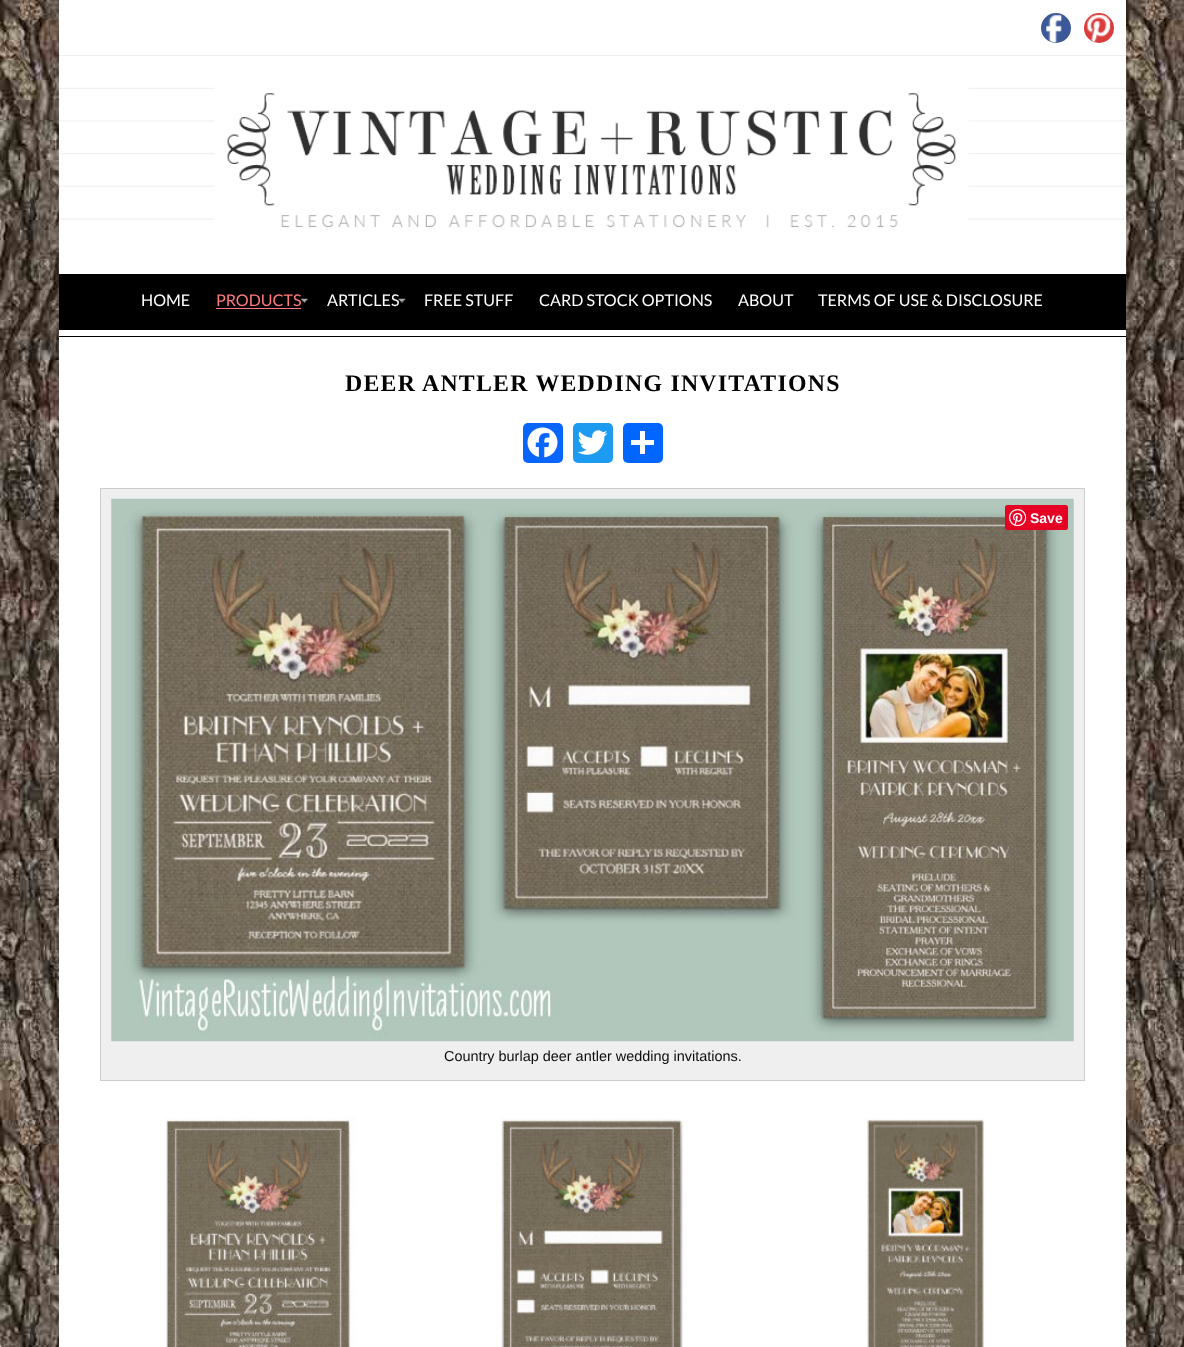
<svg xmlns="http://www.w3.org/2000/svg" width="1184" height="1347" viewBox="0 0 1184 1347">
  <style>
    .t1 { font: 16.1px Lato; fill: #fff; }
    .t2 { font: 16.1px Lato; fill: #ff7a7f; }
    .t3 { font: bold 23.8px Liberation Serif; letter-spacing: 1.25px; fill: #000; }
    .t4 { font: bold 14px Liberation Sans; fill: #fff; }
    .t5 { font: 14.45px Liberation Sans; fill: #0c0c0c; }
  </style>
  <rect width="100%" height="100%" fill="#fff"/>
  <image x="0" y="0" width="1184" height="1347" href="images/1.png"/>
  <rect x="59" y="0" width="1067" height="1347" fill="#fff"/>
  <rect x="59" y="336" width="1067" height="1" fill="#000"/>
  <rect x="59" y="55" width="1067" height="1" fill="#efefef"/>
  <circle cx="1056" cy="28" r="15" fill="#3b5998"/>
  <image x="1046" y="14" width="16" height="29" href="images/2.png"/>
  <circle cx="1099" cy="28" r="15" fill="#db3d3d"/>
  <image x="1087" y="14" width="24" height="28" href="images/3.png"/>
  <image x="58" y="56" width="1069" height="218" href="images/4.png"/>
  <rect x="59" y="274" width="1067" height="56" fill="#000"/>
  <text x="141" y="306" class="t1">HOME</text>
  <image x="301" y="298" width="7" height="5" href="images/5.png"/>
  <text x="216" y="306" class="t2">PRODUCTS</text>
  <rect x="216" y="308" width="85" height="1" fill="#ff7a7f"/>
  <image x="398" y="298" width="8" height="5" href="images/6.png"/>
  <text x="327" y="306" class="t1">ARTICLES</text>
  <text x="424" y="306" class="t1">FREE STUFF</text>
  <text x="539" y="306" class="t1">CARD STOCK OPTIONS</text>
  <text x="738" y="306" class="t1">ABOUT</text>
  <text x="818" y="306" class="t1">TERMS OF USE &amp; DISCLOSURE</text>
  <text x="345" y="391" class="t3">DEER ANTLER WEDDING INVITATIONS</text>
  <rect x="523" y="423" width="40" height="40" rx="5" fill="#0866ff"/>
  <image x="527" y="427" width="31" height="31" href="images/7.png"/>
  <rect x="573" y="423" width="40" height="40" rx="5" fill="#1d9bf0"/>
  <image x="577" y="430" width="31" height="25" href="images/8.png"/>
  <rect x="623" y="423" width="40" height="40" rx="5" fill="#0166ff"/>
  <rect x="640" y="431" width="5" height="23" fill="#fff"/>
  <rect x="631" y="440" width="23" height="5" fill="#fff"/>
  <rect x="100.5" y="488.5" width="984" height="592" fill="#efefef" stroke="#ccc"/>
  <image x="111" y="498" width="963" height="544" href="images/9.png"/>
  <rect x="1005" y="505" width="63" height="25" rx="2.5" fill="#e60023"/>
  <image x="1009" y="509" width="17" height="17" href="images/10.png"/>
  <text x="1030" y="523" class="t4">Save</text>
  <text x="444" y="1061" class="t5">Country burlap deer antler wedding invitations.</text>
  <image x="164" y="1117" width="192" height="230" href="images/11.png"/>
  <image x="501" y="1118" width="182" height="229" href="images/12.png"/>
  <image x="865" y="1118" width="120" height="229" href="images/13.png"/>
</svg>
